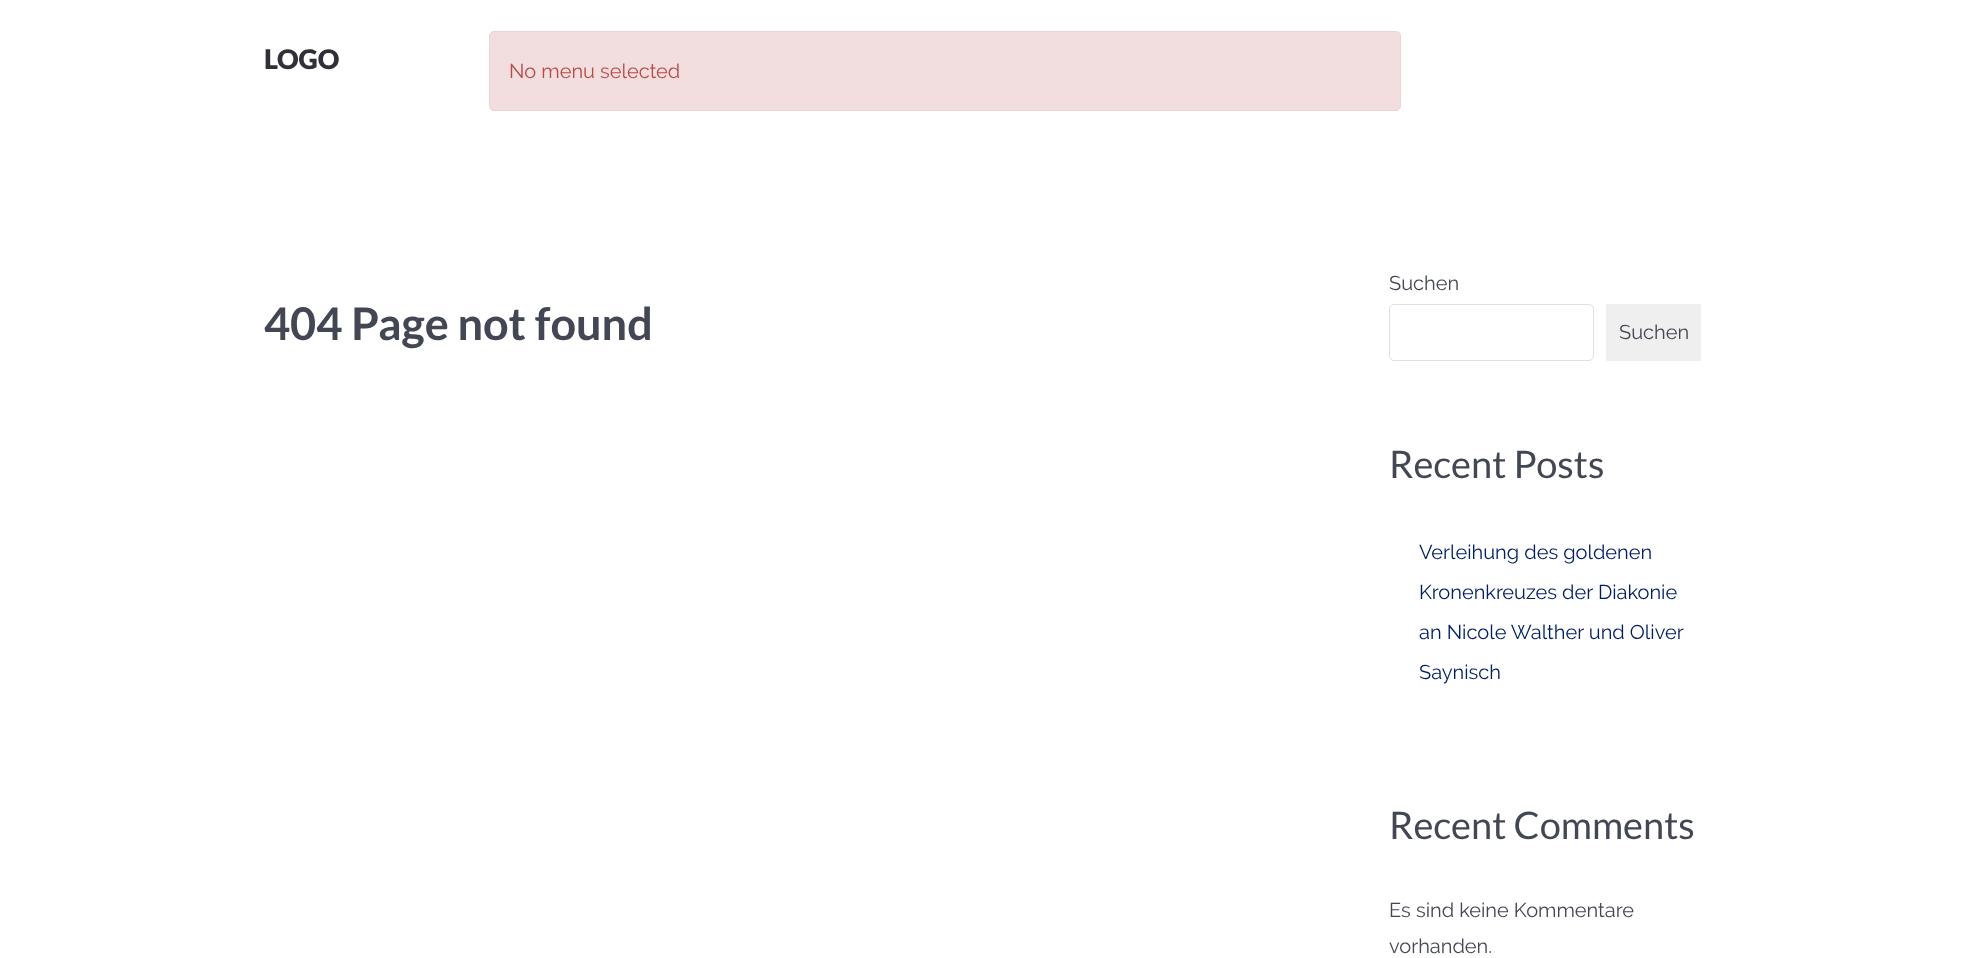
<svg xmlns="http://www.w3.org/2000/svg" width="1964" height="958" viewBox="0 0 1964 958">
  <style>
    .t1 { font: 900 27px Lato; fill: #312f38; }
    .t2 { font: 20px Raleway; fill: #b94a48; }
    .t3 { font: bold 45px Lato; fill: #424753; }
    .t4 { font: 20px Raleway; fill: #424753; }
    .t5 { font: 38px Lato; fill: #424753; }
    .t6 { font: 20px Raleway; fill: #001e63; }
  </style>
  <rect width="100%" height="100%" fill="#fff"/>
  <text x="264" y="69" class="t1">LOGO</text>
  <rect x="489.5" y="31.5" width="911" height="79" rx="4.5" fill="#f2dede" stroke="#eed3d7"/>
  <text x="509" y="78" class="t2">No menu selected</text>
  <text x="264" y="340" class="t3">404 Page not found</text>
  <text x="1389" y="290" class="t4">Suchen</text>
  <rect x="1389.5" y="304.5" width="204" height="56" rx="4.5" fill="none" stroke="#e0e0e5"/>
  <rect x="1606" y="304" width="95" height="57" fill="#efefef"/>
  <text x="1619" y="339" class="t4">Suchen</text>
  <text x="1389" y="478" class="t5">Recent Posts</text>
  <text x="1419" y="559" class="t6">Verleihung des goldenen</text>
  <text x="1419" y="599" class="t6">Kronenkreuzes der Diakonie</text>
  <text x="1419" y="639" class="t6">an Nicole Walther und Oliver</text>
  <text x="1419" y="679" class="t6">Saynisch</text>
  <text x="1389" y="839" class="t5">Recent Comments</text>
  <text x="1389" y="917" class="t4">Es sind keine Kommentare</text>
  <text x="1389" y="953" class="t4">vorhanden.</text>
</svg>
